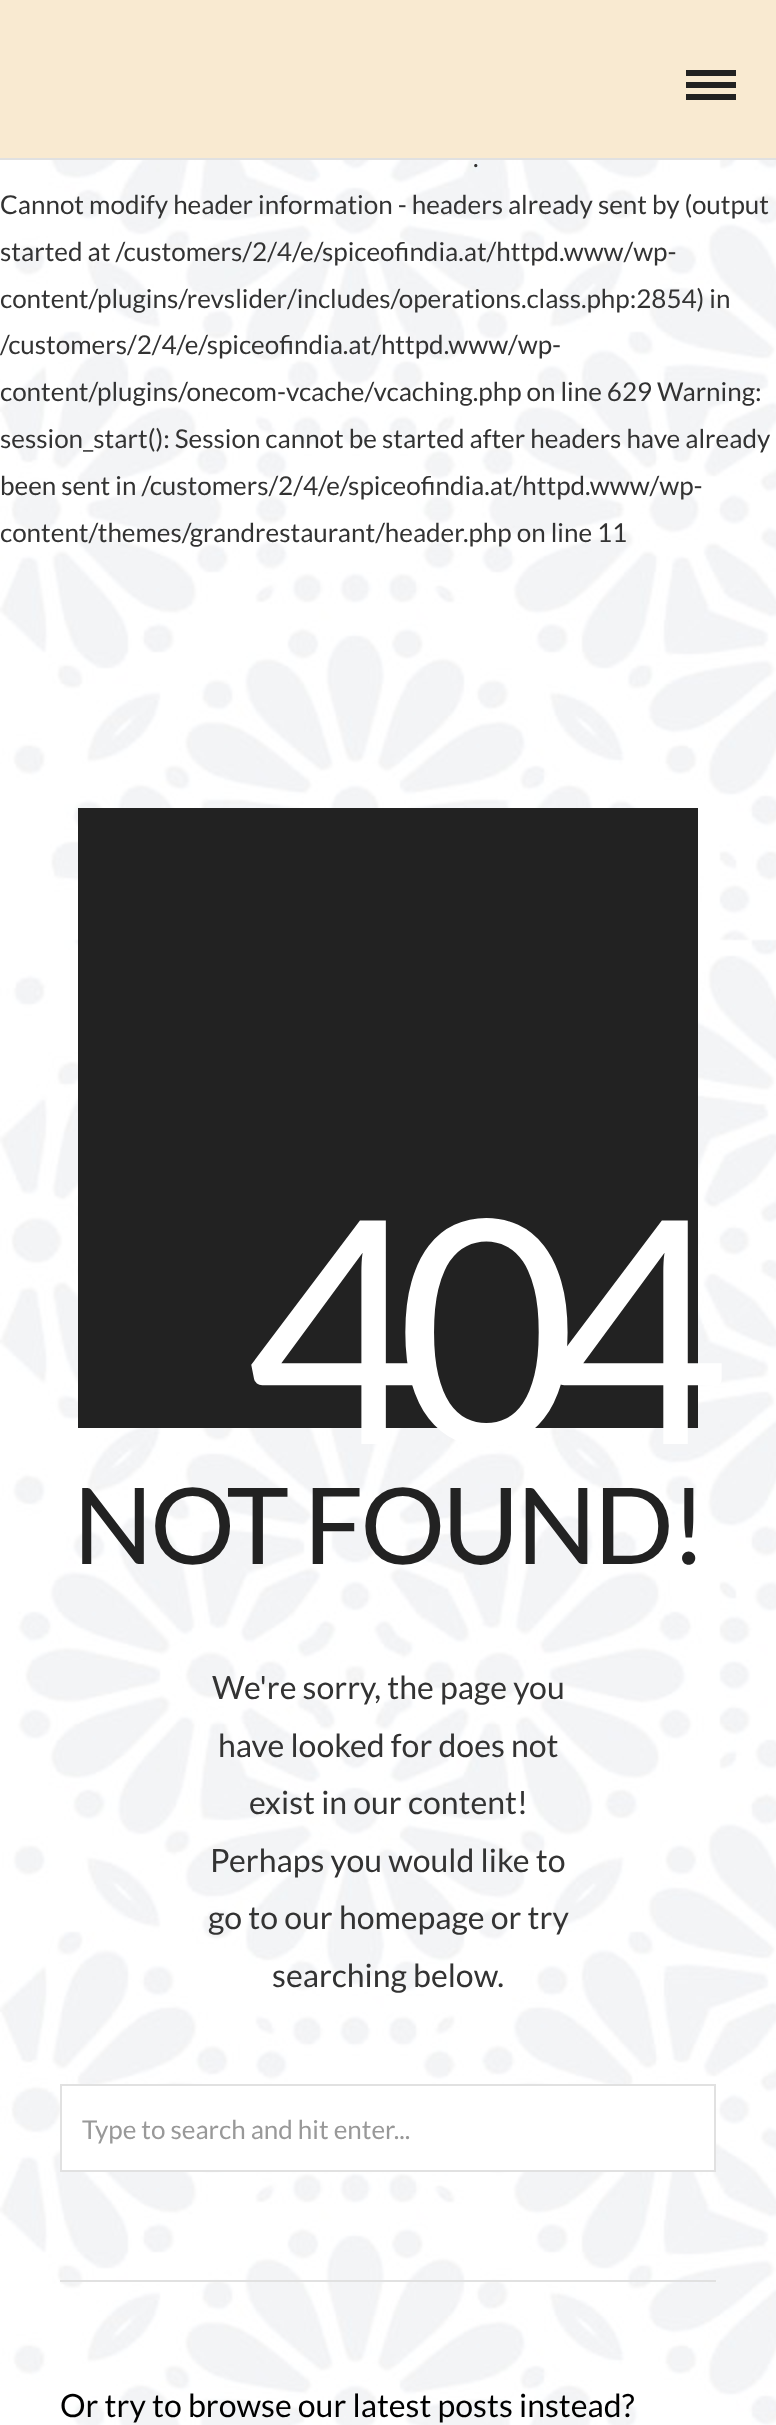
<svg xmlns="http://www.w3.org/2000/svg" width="776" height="2425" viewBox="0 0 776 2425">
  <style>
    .t1 { font: 26px Lato; fill: #333; }
    .t2 { font: 312px Lato; letter-spacing: -30px; fill: #fff; }
    .t3 { font: 106px Lato; letter-spacing: -3px; fill: #222; }
    .t4 { font: 32px Lato; fill: #333; }
    .t5 { font: 26px Lato; fill: #999; }
    .t6 { font: 32px Lato; fill: #000; }
  </style>
  <rect width="100%" height="100%" fill="#fff"/>
  <image x="0" y="160" width="776" height="2265" href="images/1.png"/>
  <text x="473" y="167" class="t1">.</text>
  <text x="0" y="214" class="t1">Cannot modify header information - headers already sent by (output</text>
  <text x="0" y="261" class="t1">started at /customers/2/4/e/spiceofindia.at/httpd.www/wp-</text>
  <text x="0" y="308" class="t1">content/plugins/revslider/includes/operations.class.php:2854) in</text>
  <text x="0" y="354" class="t1">/customers/2/4/e/spiceofindia.at/httpd.www/wp-</text>
  <text x="0" y="401" class="t1">content/plugins/onecom-vcache/vcaching.php on line 629 Warning:</text>
  <text x="0" y="448" class="t1">session_start(): Session cannot be started after headers have already</text>
  <text x="0" y="495" class="t1">been sent in /customers/2/4/e/spiceofindia.at/httpd.www/wp-</text>
  <text x="0" y="542" class="t1">content/themes/grandrestaurant/header.php on line 11</text>
  <rect x="0" y="0" width="776" height="158" fill="#f9ead1"/>
  <rect x="0" y="158" width="776" height="2" fill="#e1e1e1"/>
  <rect x="686" y="70" width="50" height="6" fill="#222"/>
  <rect x="686" y="82" width="50" height="6" fill="#222"/>
  <rect x="686" y="94" width="50" height="6" fill="#222"/>
  <rect x="78" y="808" width="620" height="620" fill="#222"/>
  <text x="245" y="1444" class="t2">404</text>
  <text x="73" y="1564" class="t3">NOT FOUND!</text>
  <text x="212" y="1699" class="t4">We're sorry, the page you</text>
  <text x="218" y="1757" class="t4">have looked for does not</text>
  <text x="249" y="1814" class="t4">exist in our content!</text>
  <text x="210" y="1872" class="t4">Perhaps you would like to</text>
  <text x="208" y="1929" class="t4">go to our homepage or try</text>
  <text x="272" y="1987" class="t4">searching below.</text>
  <rect x="61" y="2085" width="654" height="86" fill="#fff" stroke="#e1e1e1" stroke-width="2"/>
  <text x="82" y="2139" class="t5">Type to search and hit enter...</text>
  <rect x="60" y="2280" width="656" height="2" fill="#e1e1e1"/>
  <text x="60" y="2417" class="t6">Or try to browse our latest posts instead?</text>
</svg>
